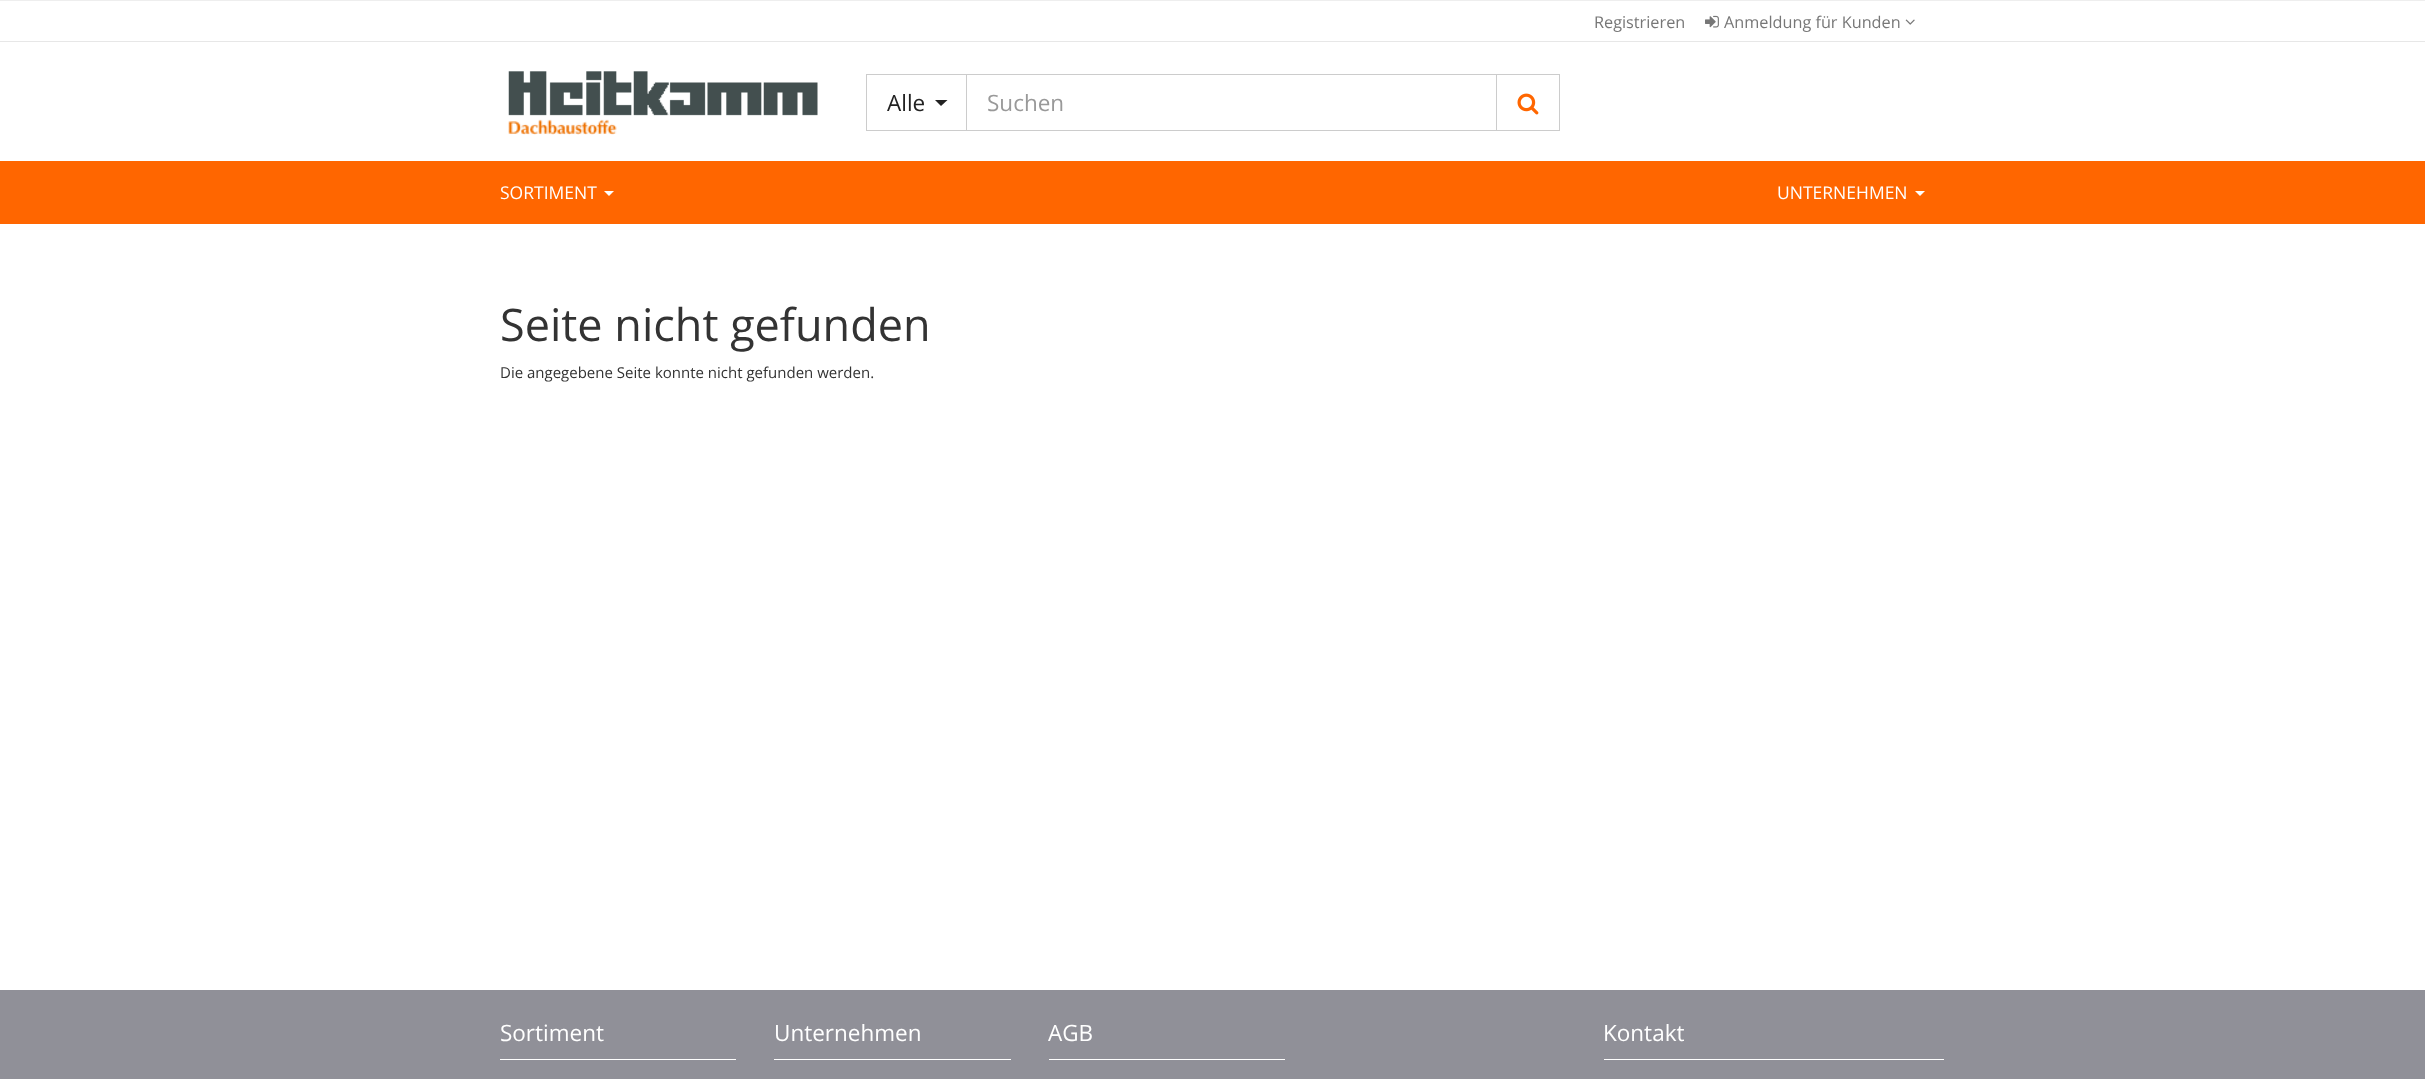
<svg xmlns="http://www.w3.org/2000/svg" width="2425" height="1079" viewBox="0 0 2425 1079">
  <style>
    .t1 { font: 16.25px Open Sans; fill: #777; }
    .t2 { font: 22.5px Open Sans; fill: #222; }
    .t3 { font: 22.5px Open Sans; fill: #999; }
    .t4 { font: 17.5px Open Sans; fill: #fff; }
    .t5 { font: 45px Open Sans; fill: #333; }
    .t6 { font: 15px Open Sans; fill: #333; }
    .t7 { font: 22.5px Open Sans; fill: #fff; }
  </style>
  <rect width="100%" height="100%" fill="#fff"/>
  <rect x="0" y="0" width="2425" height="1" fill="#eee"/>
  <rect x="0" y="41" width="2425" height="1" fill="#e7e7e7"/>
  <text x="1594" y="28" class="t1">Registrieren</text>
  <image x="1705" y="15" width="14" height="13" href="images/1.png"/>
  <text x="1724" y="28" class="t1">Anmeldung für Kunden</text>
  <image x="1905" y="19" width="10" height="6" href="images/2.png"/>
  <image x="508" y="71" width="310" height="64" href="images/3.png"/>
  <rect x="866" y="74" width="102" height="1" fill="#ccc"/>
  <rect x="866" y="130" width="102" height="1" fill="#ccc"/>
  <rect x="866" y="74" width="1" height="57" fill="#ccc"/>
  <text x="887" y="111" class="t2">Alle</text>
  <path d="M935 100H947.5L941 106Z" fill="#222"/>
  <rect x="966.5" y="74.5" width="531" height="56" fill="none" stroke="#ccc"/>
  <text x="987" y="111" class="t3">Suchen</text>
  <rect x="1497" y="75" width="1" height="55" fill="#fff"/>
  <rect x="1496.5" y="74.5" width="63" height="56" fill="none" stroke="#ccc"/>
  <image x="1517" y="93" width="22" height="22" href="images/4.png"/>
  <rect x="0" y="161" width="2425" height="63" fill="#f60"/>
  <text x="500" y="199" class="t4">SORTIMENT</text>
  <path d="M604 191H614L609 196Z" fill="#fff"/>
  <text x="1777" y="199" class="t4">UNTERNEHMEN</text>
  <path d="M1915 191H1925L1920 196Z" fill="#fff"/>
  <text x="500" y="341" class="t5">Seite nicht gefunden</text>
  <text x="500" y="378" class="t6">Die angegebene Seite konnte nicht gefunden werden.</text>
  <rect x="0" y="990" width="2425" height="89" fill="#909098"/>
  <rect x="500" y="1059" width="236" height="1" fill="#fff"/>
  <text x="500" y="1041" class="t7">Sortiment</text>
  <rect x="774" y="1059" width="237" height="1" fill="#fff"/>
  <text x="774" y="1041" class="t7">Unternehmen</text>
  <rect x="1049" y="1059" width="236" height="1" fill="#fff"/>
  <text x="1048" y="1041" class="t7">AGB</text>
  <rect x="1604" y="1059" width="340" height="1" fill="#fff"/>
  <text x="1603" y="1041" class="t7">Kontakt</text>
</svg>
